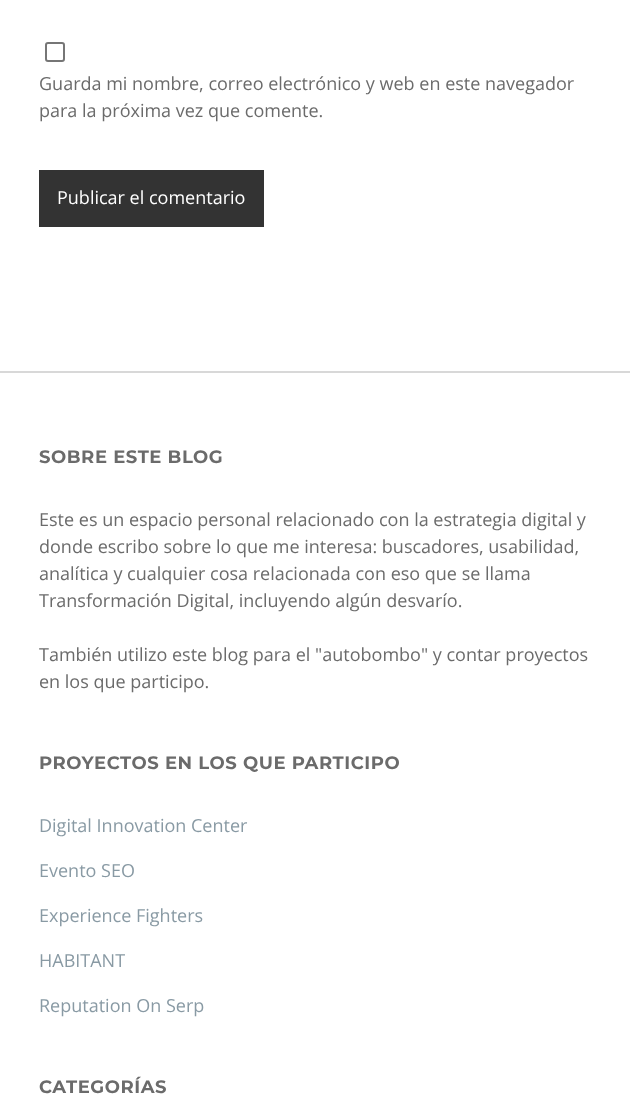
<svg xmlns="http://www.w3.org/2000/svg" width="630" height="1116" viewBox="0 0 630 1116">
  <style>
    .t1 { font: 18px Open Sans; fill: #6b6b6b; }
    .t2 { font: 18px Open Sans; fill: #fff; }
    .t3 { font: bold 18px Montserrat; letter-spacing: 0.55px; fill: #6b6b6b; }
    .t4 { font: 18px Open Sans; fill: #899aa4; }
  </style>
  <rect width="100%" height="100%" fill="#fff"/>
  <rect x="46" y="43" width="18" height="18" rx="2" fill="none" stroke="#767676" stroke-width="2"/>
  <text x="39" y="90" class="t1">Guarda mi nombre, correo electrónico y web en este navegador</text>
  <text x="39" y="117" class="t1">para la próxima vez que comente.</text>
  <rect x="39" y="170" width="225" height="57" fill="#333"/>
  <text x="57" y="204" class="t2">Publicar el comentario</text>
  <rect x="0" y="371" width="630" height="2" fill="#d8d8d8"/>
  <text x="39" y="463" class="t3">SOBRE ESTE BLOG</text>
  <text x="39" y="526" class="t1">Este es un espacio personal relacionado con la estrategia digital y</text>
  <text x="39" y="553" class="t1">donde escribo sobre lo que me interesa: buscadores, usabilidad,</text>
  <text x="39" y="580" class="t1">analítica y cualquier cosa relacionada con eso que se llama</text>
  <text x="39" y="607" class="t1">Transformación Digital, incluyendo algún desvarío.</text>
  <text x="39" y="661" class="t1">También utilizo este blog para el "autobombo" y contar proyectos</text>
  <text x="39" y="688" class="t1">en los que participo.</text>
  <text x="39" y="769" class="t3">PROYECTOS EN LOS QUE PARTICIPO</text>
  <text x="39" y="832" class="t4">Digital Innovation Center</text>
  <text x="39" y="877" class="t4">Evento SEO</text>
  <text x="39" y="922" class="t4">Experience Fighters</text>
  <text x="39" y="967" class="t4">HABITANT</text>
  <text x="39" y="1012" class="t4">Reputation On Serp</text>
  <text x="39" y="1093" class="t3">CATEGORÍAS</text>
</svg>
